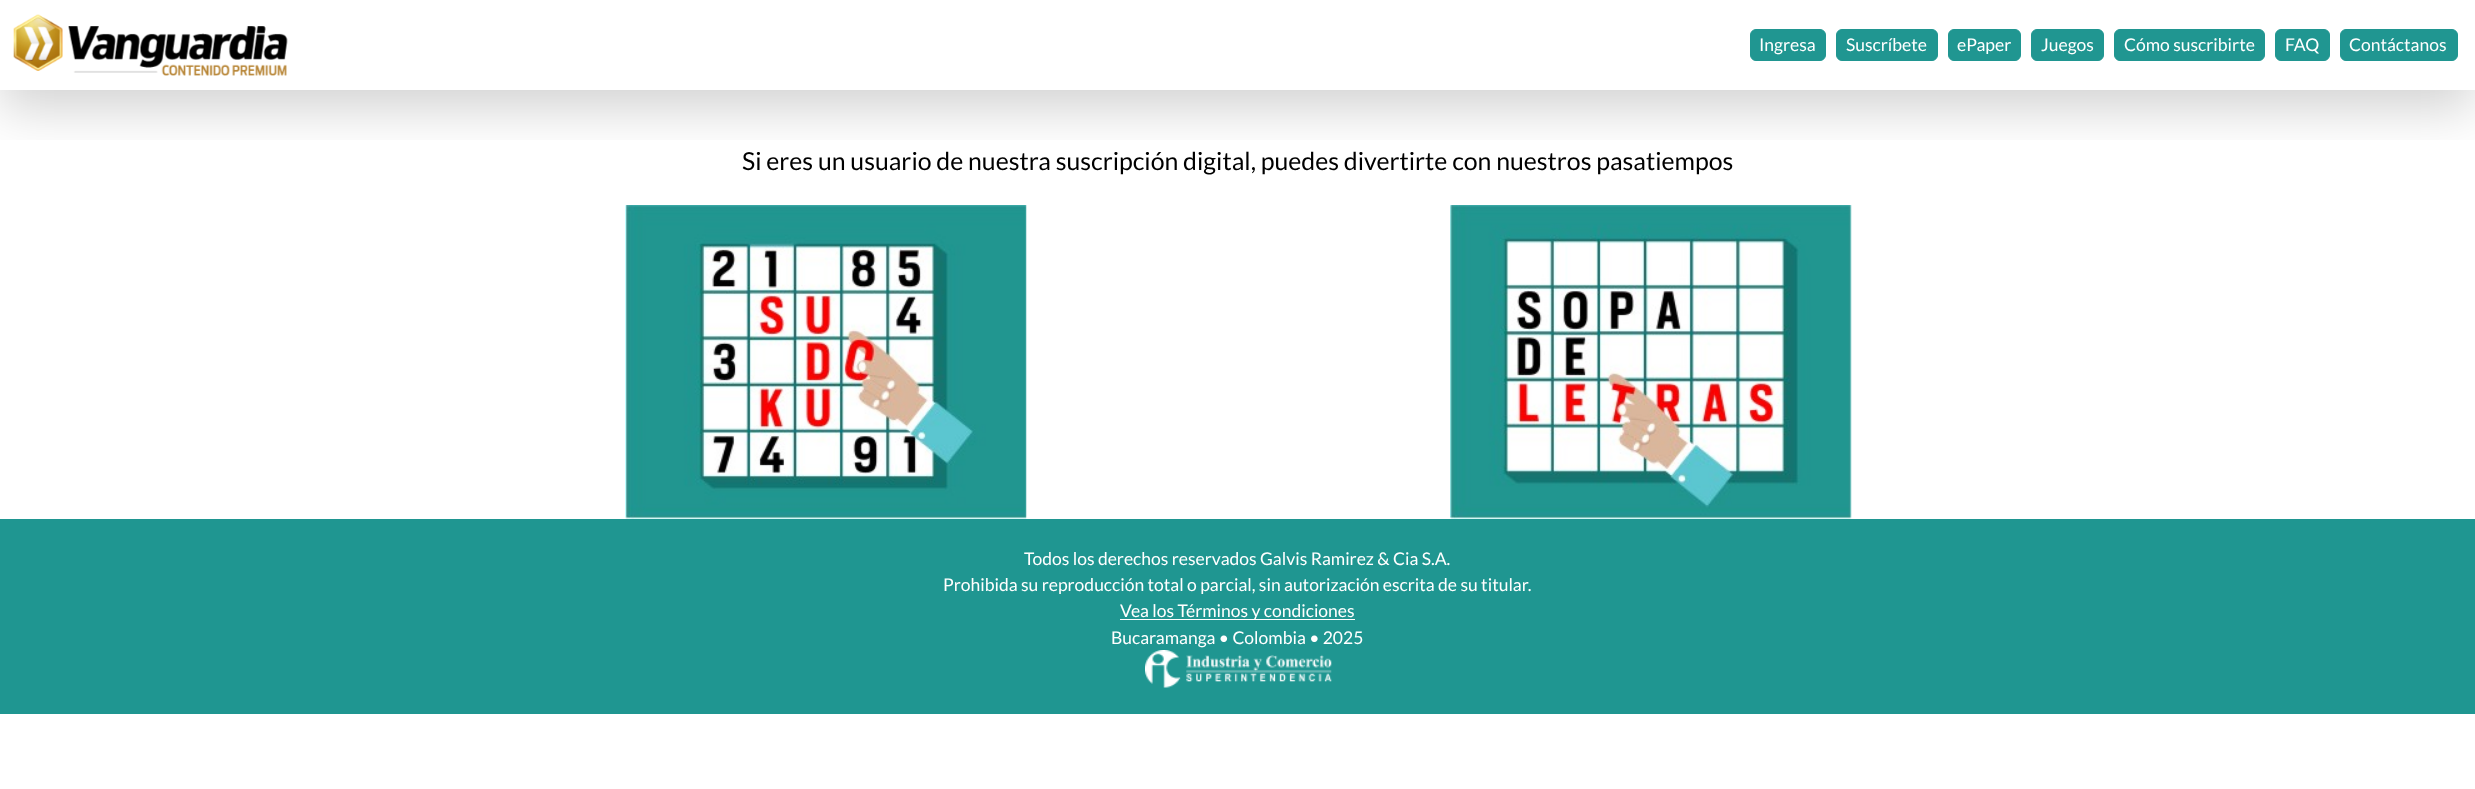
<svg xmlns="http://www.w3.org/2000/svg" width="2475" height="789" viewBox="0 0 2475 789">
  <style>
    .t1 { font: 17.5px Lato; fill: #fff; }
    .t2 { font: 24.85px Lato; fill: #000; }
  </style>
  <defs>
    <clipPath id="clip1"><rect x="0" y="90" width="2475" height="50"/></clipPath>
  </defs>
  <rect width="100%" height="100%" fill="#fff"/>
  <g clip-path="url(#clip1)">
    <rect x="0" y="18" width="2475" height="90" fill="#0000002e" filter="blur(26px)"/>
  </g>
  <image x="13" y="14" width="275" height="62" href="images/1.png"/>
  <rect x="1750.5" y="29.5" width="75" height="31" rx="5.5" fill="#209691" stroke="#209691"/>
  <text x="1759" y="51" class="t1">Ingresa</text>
  <rect x="1836.5" y="29.5" width="101" height="31" rx="5.5" fill="#209691" stroke="#209691"/>
  <text x="1846" y="51" class="t1">Suscríbete</text>
  <rect x="1948.5" y="29.5" width="72" height="31" rx="5.5" fill="#209691" stroke="#209691"/>
  <text x="1957" y="51" class="t1">ePaper</text>
  <rect x="2031.5" y="29.5" width="72" height="31" rx="5.5" fill="#209691" stroke="#209691"/>
  <text x="2041" y="51" class="t1">Juegos</text>
  <rect x="2114.5" y="29.5" width="150" height="31" rx="5.5" fill="#209691" stroke="#209691"/>
  <text x="2124" y="51" class="t1">Cómo suscribirte</text>
  <rect x="2275.5" y="29.5" width="54" height="31" rx="5.5" fill="#209691" stroke="#209691"/>
  <text x="2285" y="51" class="t1">FAQ</text>
  <rect x="2340.5" y="29.5" width="117" height="31" rx="5.5" fill="#209691" stroke="#209691"/>
  <text x="2349" y="51" class="t1">Contáctanos</text>
  <text x="742" y="170" class="t2">Si eres un usuario de nuestra suscripción digital, puedes divertirte con nuestros pasatiempos</text>
  <image x="625" y="205" width="402" height="314" href="images/2.png"/>
  <image x="1450" y="205" width="402" height="314" href="images/3.png"/>
  <rect x="0" y="519" width="2475" height="195" fill="#1f9691"/>
  <text x="1024" y="565" class="t1">Todos los derechos reservados Galvis Ramirez &amp; Cia S.A.</text>
  <text x="943" y="591" class="t1">Prohibida su reproducción total o parcial, sin autorización escrita de su titular.</text>
  <rect x="1120" y="619" width="235" height="1" fill="#fff"/>
  <text x="1120" y="617" class="t1">Vea los Términos y condiciones</text>
  <text x="1111" y="644" class="t1">Bucaramanga • Colombia • 2025</text>
  <image x="1145" y="650" width="187" height="38" href="images/4.png"/>
</svg>
